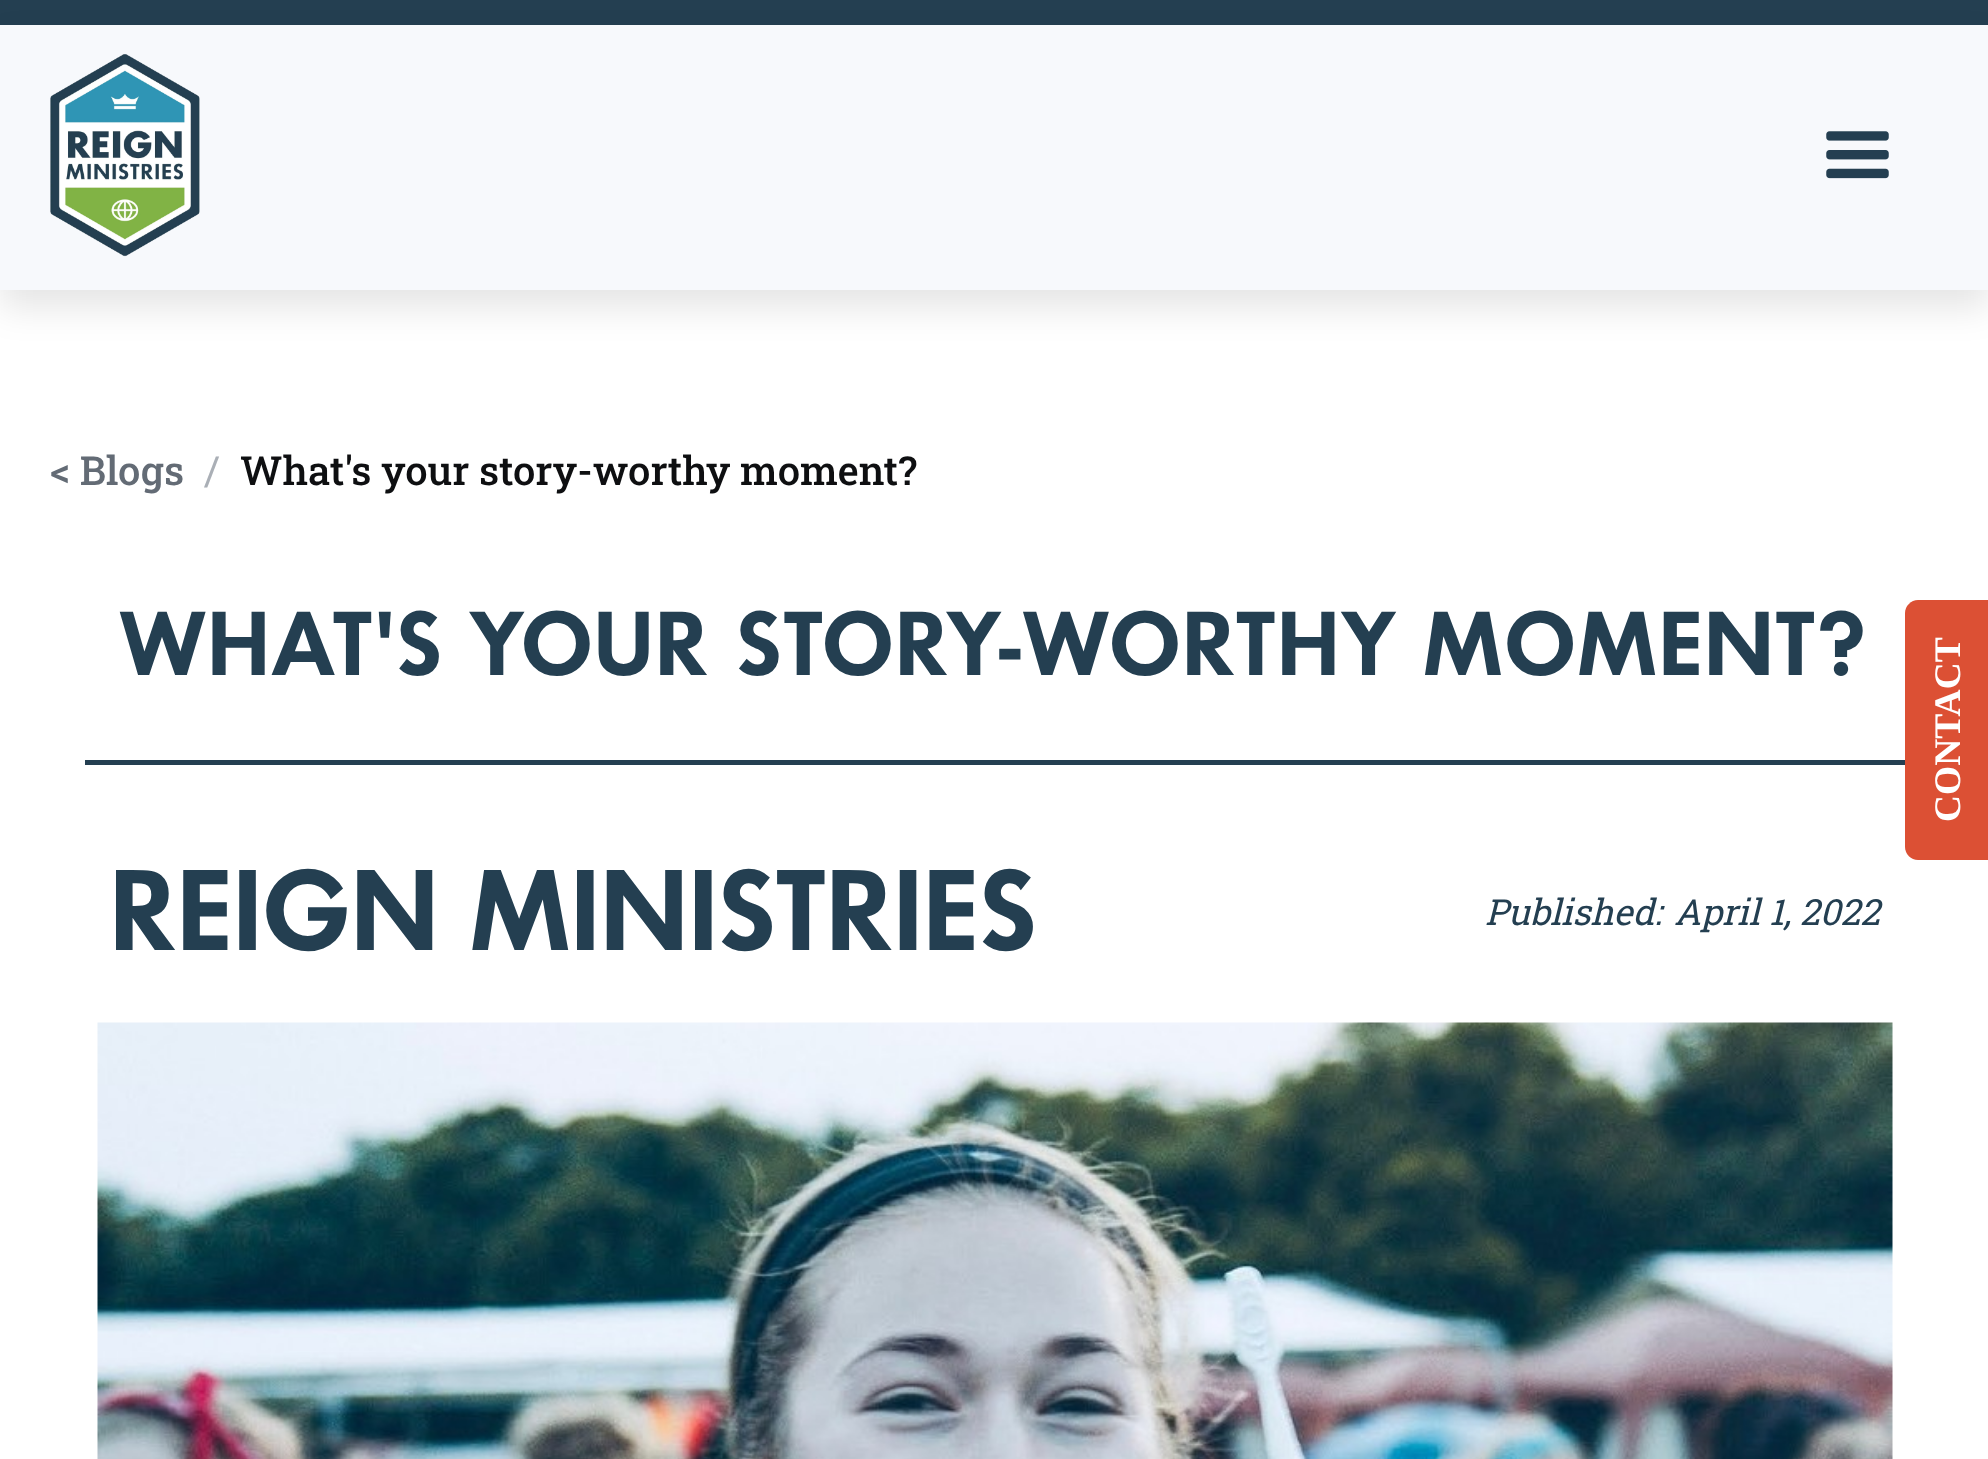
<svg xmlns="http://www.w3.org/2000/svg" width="1988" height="1459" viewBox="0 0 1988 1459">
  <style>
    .t1 { font: 500 40px Roboto Slab; fill: #636b75; }
    .t2 { font: 40px Roboto Slab; fill: #aaafb6; }
    .t3 { font: 500 40px Roboto Slab; fill: #0e0f11; }
    .t4 { font: 600 95px 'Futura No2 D'; letter-spacing: 2.5px; fill: #243f51; }
    .t5 { font: 600 120px 'Futura No2 D'; letter-spacing: 1.25px; fill: #243f51; }
    .t6 { font: italic 36px Roboto Slab; fill: #243f51; }
    .t7 { font: bold 37.5px Liberation Serif; fill: #fff; }
  </style>
  <rect width="100%" height="100%" fill="#fff"/>
  <rect x="0" y="0" width="1988" height="25" fill="#243f51"/>
  <rect x="0" y="43" width="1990" height="265" fill="#0000001a" filter="blur(17.5px)"/>
  <rect x="0" y="25" width="1988" height="265" fill="#f7f9fc"/>
  <image x="50" y="54" width="150" height="203" href="images/1.png"/>
  <image x="1826" y="131" width="63" height="48" href="images/2.png"/>
  <text x="50" y="485" class="t1">&lt; Blogs</text>
  <text x="204" y="485" class="t2">/</text>
  <text x="240" y="485" class="t3">What's your story-worthy moment?</text>
  <text x="120" y="675" class="t4">WHAT'S YOUR STORY-WORTHY MOMENT?</text>
  <rect x="85" y="760" width="1820" height="5" fill="#243f51"/>
  <text x="110" y="950" class="t5">REIGN MINISTRIES</text>
  <text x="1485" y="925" class="t6">Published:</text>
  <text x="1674" y="925" class="t6">April 1, 2022</text>
  <image x="97" y="1022" width="1796" height="437" href="images/3.png"/>
  <path d="M1905 847V613C1905 606 1911 600 1918 600H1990V860H1918C1911 860 1905 854 1905 847Z" fill="#dc5034"/>
  <text x="1960" y="822" transform="rotate(-90 1960 822)" class="t7">CONTACT</text>
</svg>
